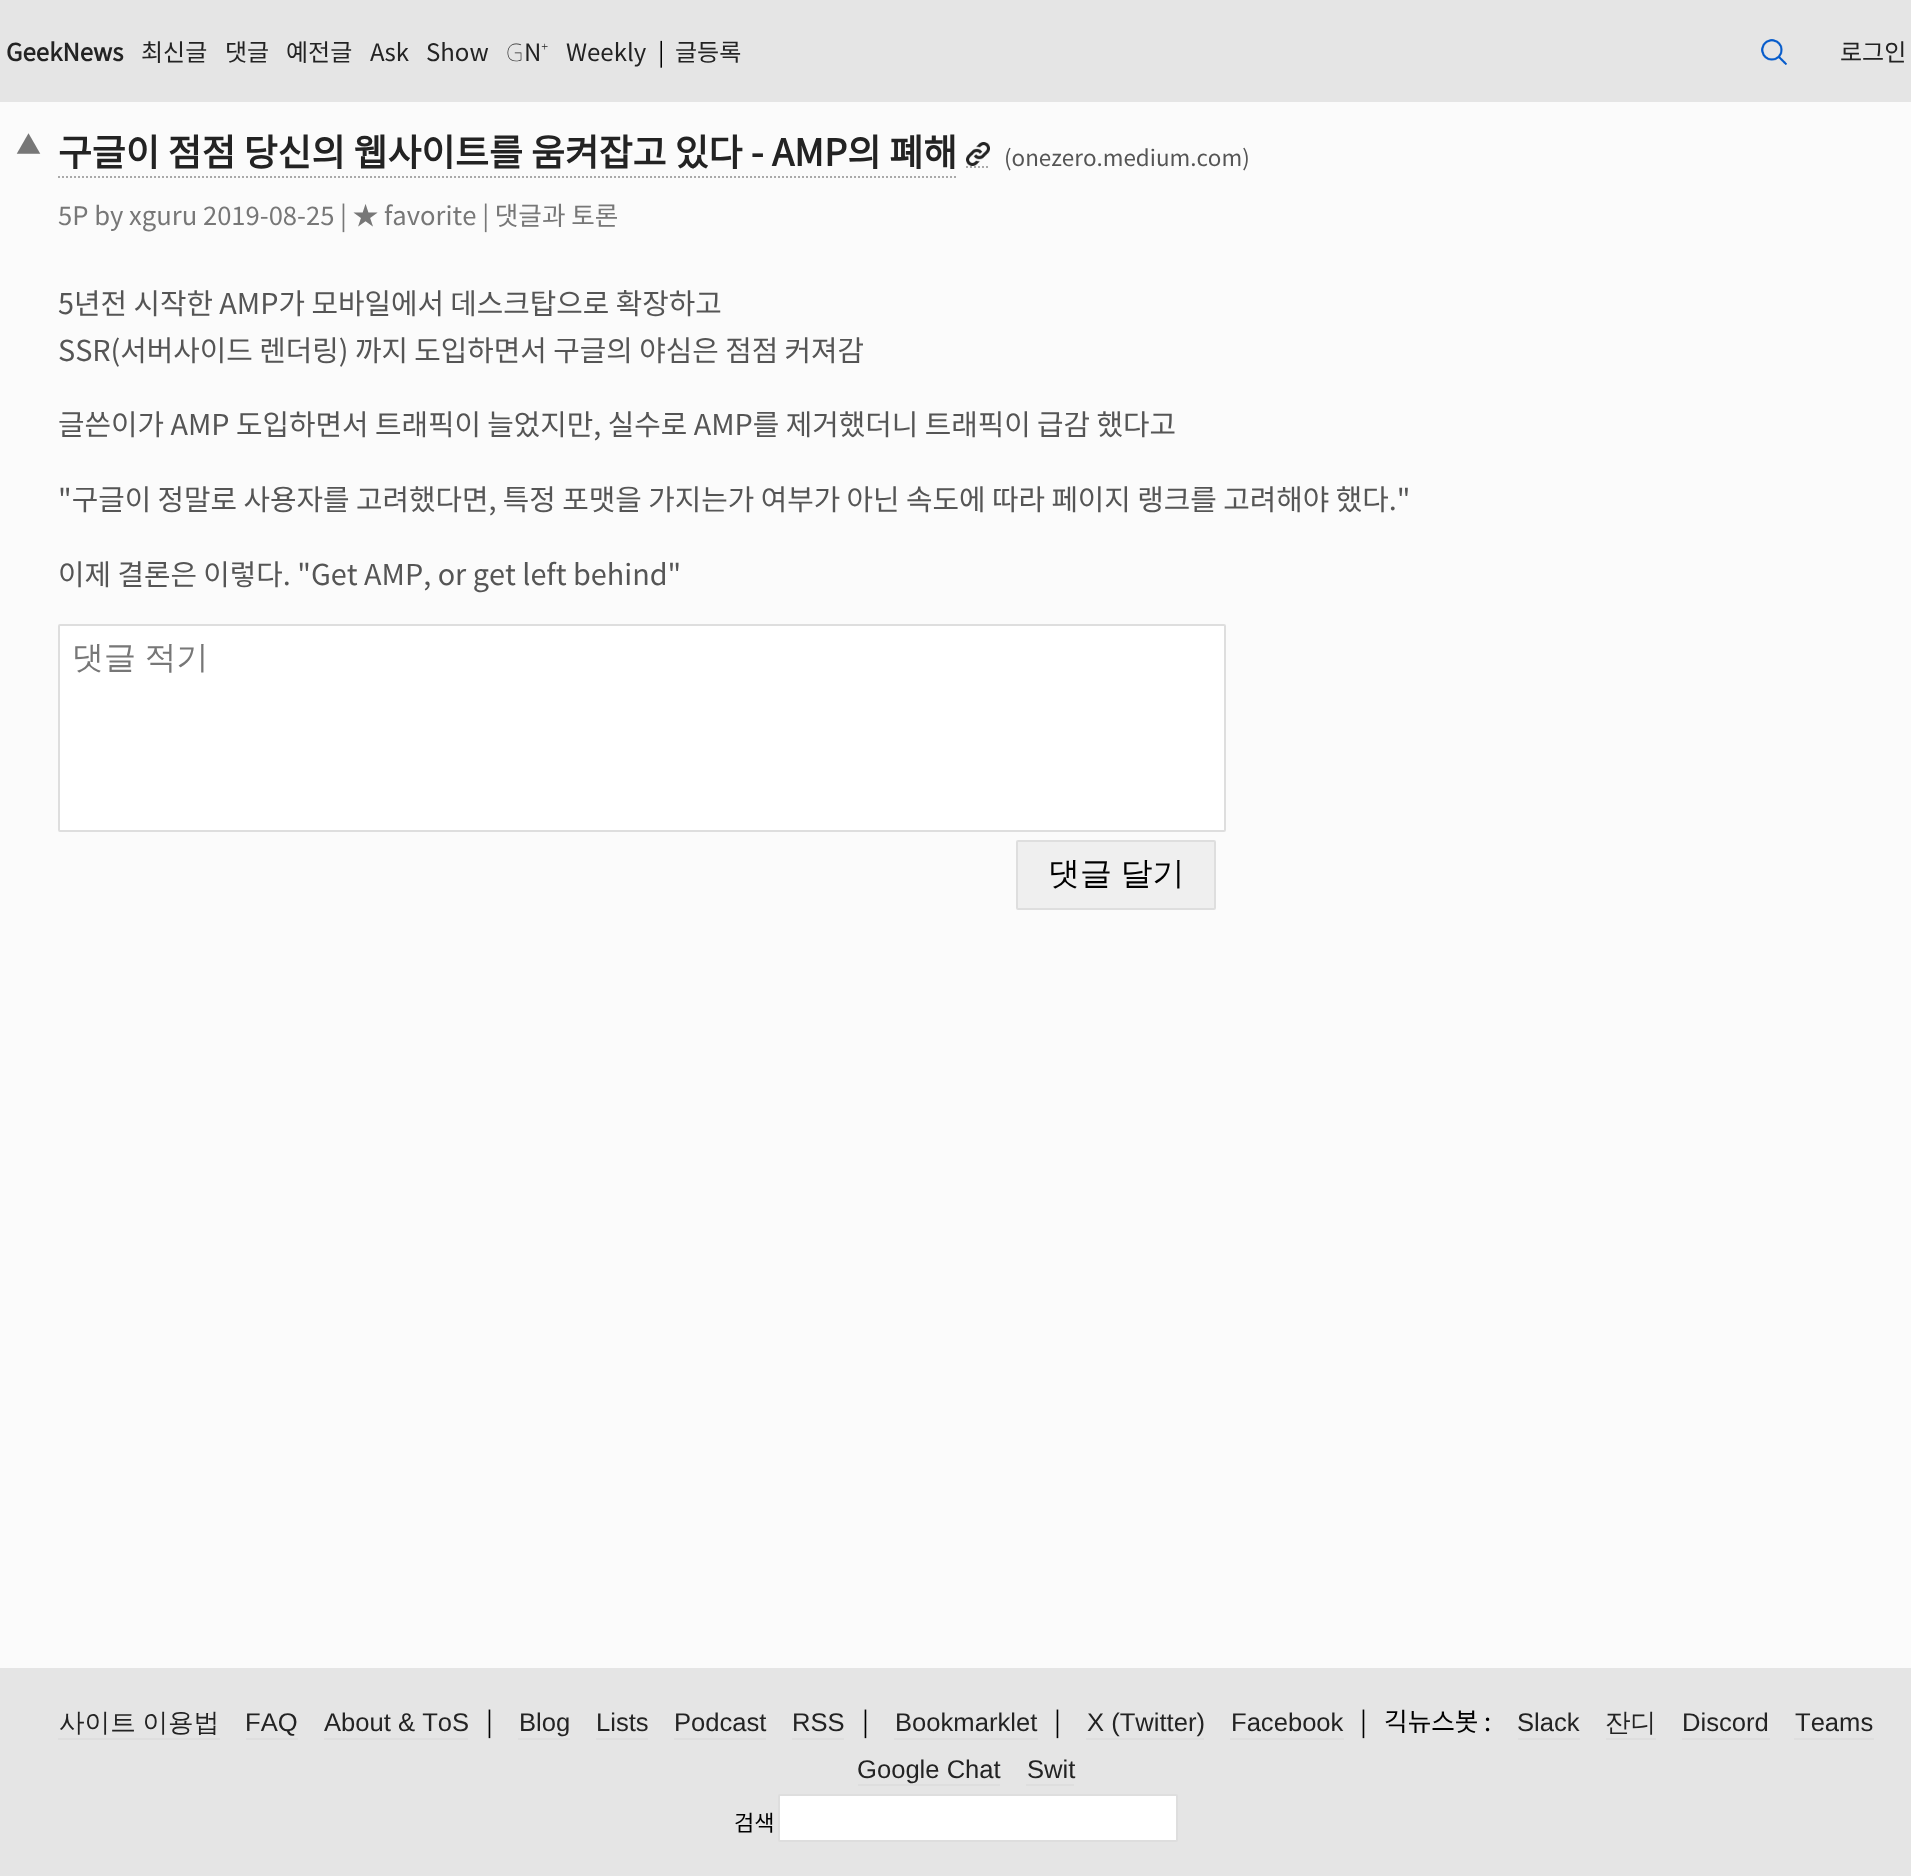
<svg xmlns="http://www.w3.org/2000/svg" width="1911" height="1876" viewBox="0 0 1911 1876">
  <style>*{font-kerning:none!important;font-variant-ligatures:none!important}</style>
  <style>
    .t1 { font: bold 24px Noto Sans KR; fill: #232323; }
    .t2 { font: 100 24px Noto Sans KR; fill: #232323; }
    .t3 { font: 100 24px Noto Sans; fill: #232323; }
    .t4 { font: 100 24px Noto Sans KR; fill: #000; }
    .t5 { font: 100 25px Noto Sans KR; fill: #777; }
    .t6 { font: bold 36.8px Noto Sans KR; fill: #232323; }
    .t7 { font: 100 22.4px Noto Sans KR; fill: #555; }
    .t8 { font: 100 25.6px Noto Sans KR; fill: #777; }
    .t9 { font: 100 28.8px Noto Sans KR; fill: #555; }
    .t10 { font: 500 32px WenQuanYi Zen Hei; fill: #777; }
    .t11 { font: 500 32px WenQuanYi Zen Hei; fill: #000; }
    .t12 { font: 500 25.6px WenQuanYi Zen Hei; fill: #232323; }
    .t13 { font: 25.6px Liberation Sans; fill: #232323; }
    .t14 { font: 100 25.6px Noto Sans KR; fill: #000; }
    .t15 { font: 100 22px Noto Sans KR; fill: #000; }
  </style>
  <rect width="100%" height="100%" fill="#fbfbfb"/>
  <rect x="0" y="0" width="1911" height="102" fill="#e5e5e5"/>
  <text x="6" y="61" class="t1">GeekNews</text>
  <text x="141" y="61" class="t2">최신글</text>
  <text x="225" y="61" class="t2">댓글</text>
  <text x="286" y="61" class="t2">예전글</text>
  <text x="370" y="61" class="t2">Ask</text>
  <text x="426" y="61" class="t2">Show</text>
  <text x="506" y="61" class="t3">G</text>
  <text x="524" y="61" class="t2">N</text>
  <text x="541" y="61" class="t3">⁺</text>
  <text x="566" y="61" class="t2">Weekly</text>
  <text x="658" y="61" class="t4">|</text>
  <text x="675" y="61" class="t2">글등록</text>
  <image x="1761" y="39" width="26" height="26" href="images/1.png"/>
  <text x="1840" y="61" class="t2">로그인</text>
  <text x="16" y="154" class="t5">▲</text>
  <path d="M58 177H956" fill="none" stroke="#aaa" stroke-width="2" stroke-dasharray="2 2"/>
  <path d="M966 167H990" fill="none" stroke="#aaa" stroke-width="2" stroke-dasharray="2 2"/>
  <text x="58" y="166" class="t6">구글이 점점 당신의 웹사이트를 움켜잡고 있다 - AMP의 폐해</text>
  <image x="966" y="142" width="24" height="24" href="images/2.png"/>
  <text x="1004" y="166" class="t7">(onezero.medium.com)</text>
  <text x="58" y="225" class="t8">5P by xguru 2019-08-25 | ★ favorite | 댓글과 토론</text>
  <text x="58" y="314" class="t9">5년전 시작한 AMP가 모바일에서 데스크탑으로 확장하고</text>
  <text x="58" y="361" class="t9">SSR(서버사이드 렌더링) 까지 도입하면서 구글의 야심은 점점 커져감</text>
  <text x="58" y="435" class="t9">글쓴이가 AMP 도입하면서 트래픽이 늘었지만, 실수로 AMP를 제거했더니 트래픽이 급감 했다고</text>
  <text x="58" y="510" class="t9">"구글이 정말로 사용자를 고려했다면, 특정 포맷을 가지는가 여부가 아닌 속도에 따라 페이지 랭크를 고려해야 했다."</text>
  <text x="58" y="585" class="t9">이제 결론은 이렇다. "Get AMP, or get left</text>
  <text x="573" y="585" class="t9">behind"</text>
  <rect x="59" y="625" width="1166" height="206" rx="1" fill="#fff" stroke="#dedede" stroke-width="2"/>
  <text x="72" y="668" word-spacing="-1" class="t10">댓글 적기</text>
  <rect x="1017" y="841" width="198" height="68" rx="1" fill="#efefef" stroke="#dedede" stroke-width="2"/>
  <text x="1048" y="884" word-spacing="-1" class="t11">댓글 달기</text>
  <rect x="0" y="1668" width="1911" height="208" fill="#e5e5e5"/>
  <text x="59" y="1731" word-spacing="-1" class="t12">사이트 이용법</text>
  <rect x="58" y="1738" width="162" height="2" fill="#dedede"/>
  <text x="245" y="1731" class="t13">FAQ</text>
  <rect x="246" y="1738" width="52" height="2" fill="#dedede"/>
  <text x="324" y="1731" class="t13">About &amp; ToS</text>
  <rect x="324" y="1738" width="144" height="2" fill="#dedede"/>
  <text x="486" y="1731" class="t14">|</text>
  <text x="519" y="1731" class="t13">Blog</text>
  <rect x="518" y="1738" width="52" height="2" fill="#dedede"/>
  <text x="596" y="1731" class="t13">Lists</text>
  <rect x="596" y="1738" width="52" height="2" fill="#dedede"/>
  <text x="674" y="1731" class="t13">Podcast</text>
  <rect x="674" y="1738" width="92" height="2" fill="#dedede"/>
  <text x="792" y="1731" class="t13">RSS</text>
  <rect x="792" y="1738" width="52" height="2" fill="#dedede"/>
  <text x="862" y="1731" class="t14">|</text>
  <text x="895" y="1731" class="t13">Bookmarklet</text>
  <rect x="894" y="1738" width="144" height="2" fill="#dedede"/>
  <text x="1054" y="1731" class="t14">|</text>
  <text x="1087" y="1731" class="t13">X (Twitter)</text>
  <rect x="1086" y="1738" width="118" height="2" fill="#dedede"/>
  <text x="1231" y="1731" class="t13">Facebook</text>
  <rect x="1230" y="1738" width="114" height="2" fill="#dedede"/>
  <text x="1360" y="1731" class="t14" xml:space="preserve">|   긱뉴스봇 :</text>
  <text x="1517" y="1731" class="t13">Slack</text>
  <rect x="1518" y="1738" width="62" height="2" fill="#dedede"/>
  <text x="1605" y="1731" class="t12">잔디</text>
  <rect x="1606" y="1738" width="50" height="2" fill="#dedede"/>
  <text x="1682" y="1731" class="t13">Discord</text>
  <rect x="1682" y="1738" width="88" height="2" fill="#dedede"/>
  <text x="1795" y="1731" class="t13">Teams</text>
  <rect x="1794" y="1738" width="80" height="2" fill="#dedede"/>
  <text x="857" y="1778" class="t13">Google Chat</text>
  <rect x="858" y="1784" width="142" height="2" fill="#dedede"/>
  <text x="1027" y="1778" class="t13">Swit</text>
  <rect x="1026" y="1784" width="48" height="2" fill="#dedede"/>
  <text x="734" y="1831" class="t15">검색</text>
  <rect x="779" y="1795" width="398" height="46" rx="1" fill="#fff" stroke="#dedede" stroke-width="2"/>
</svg>
